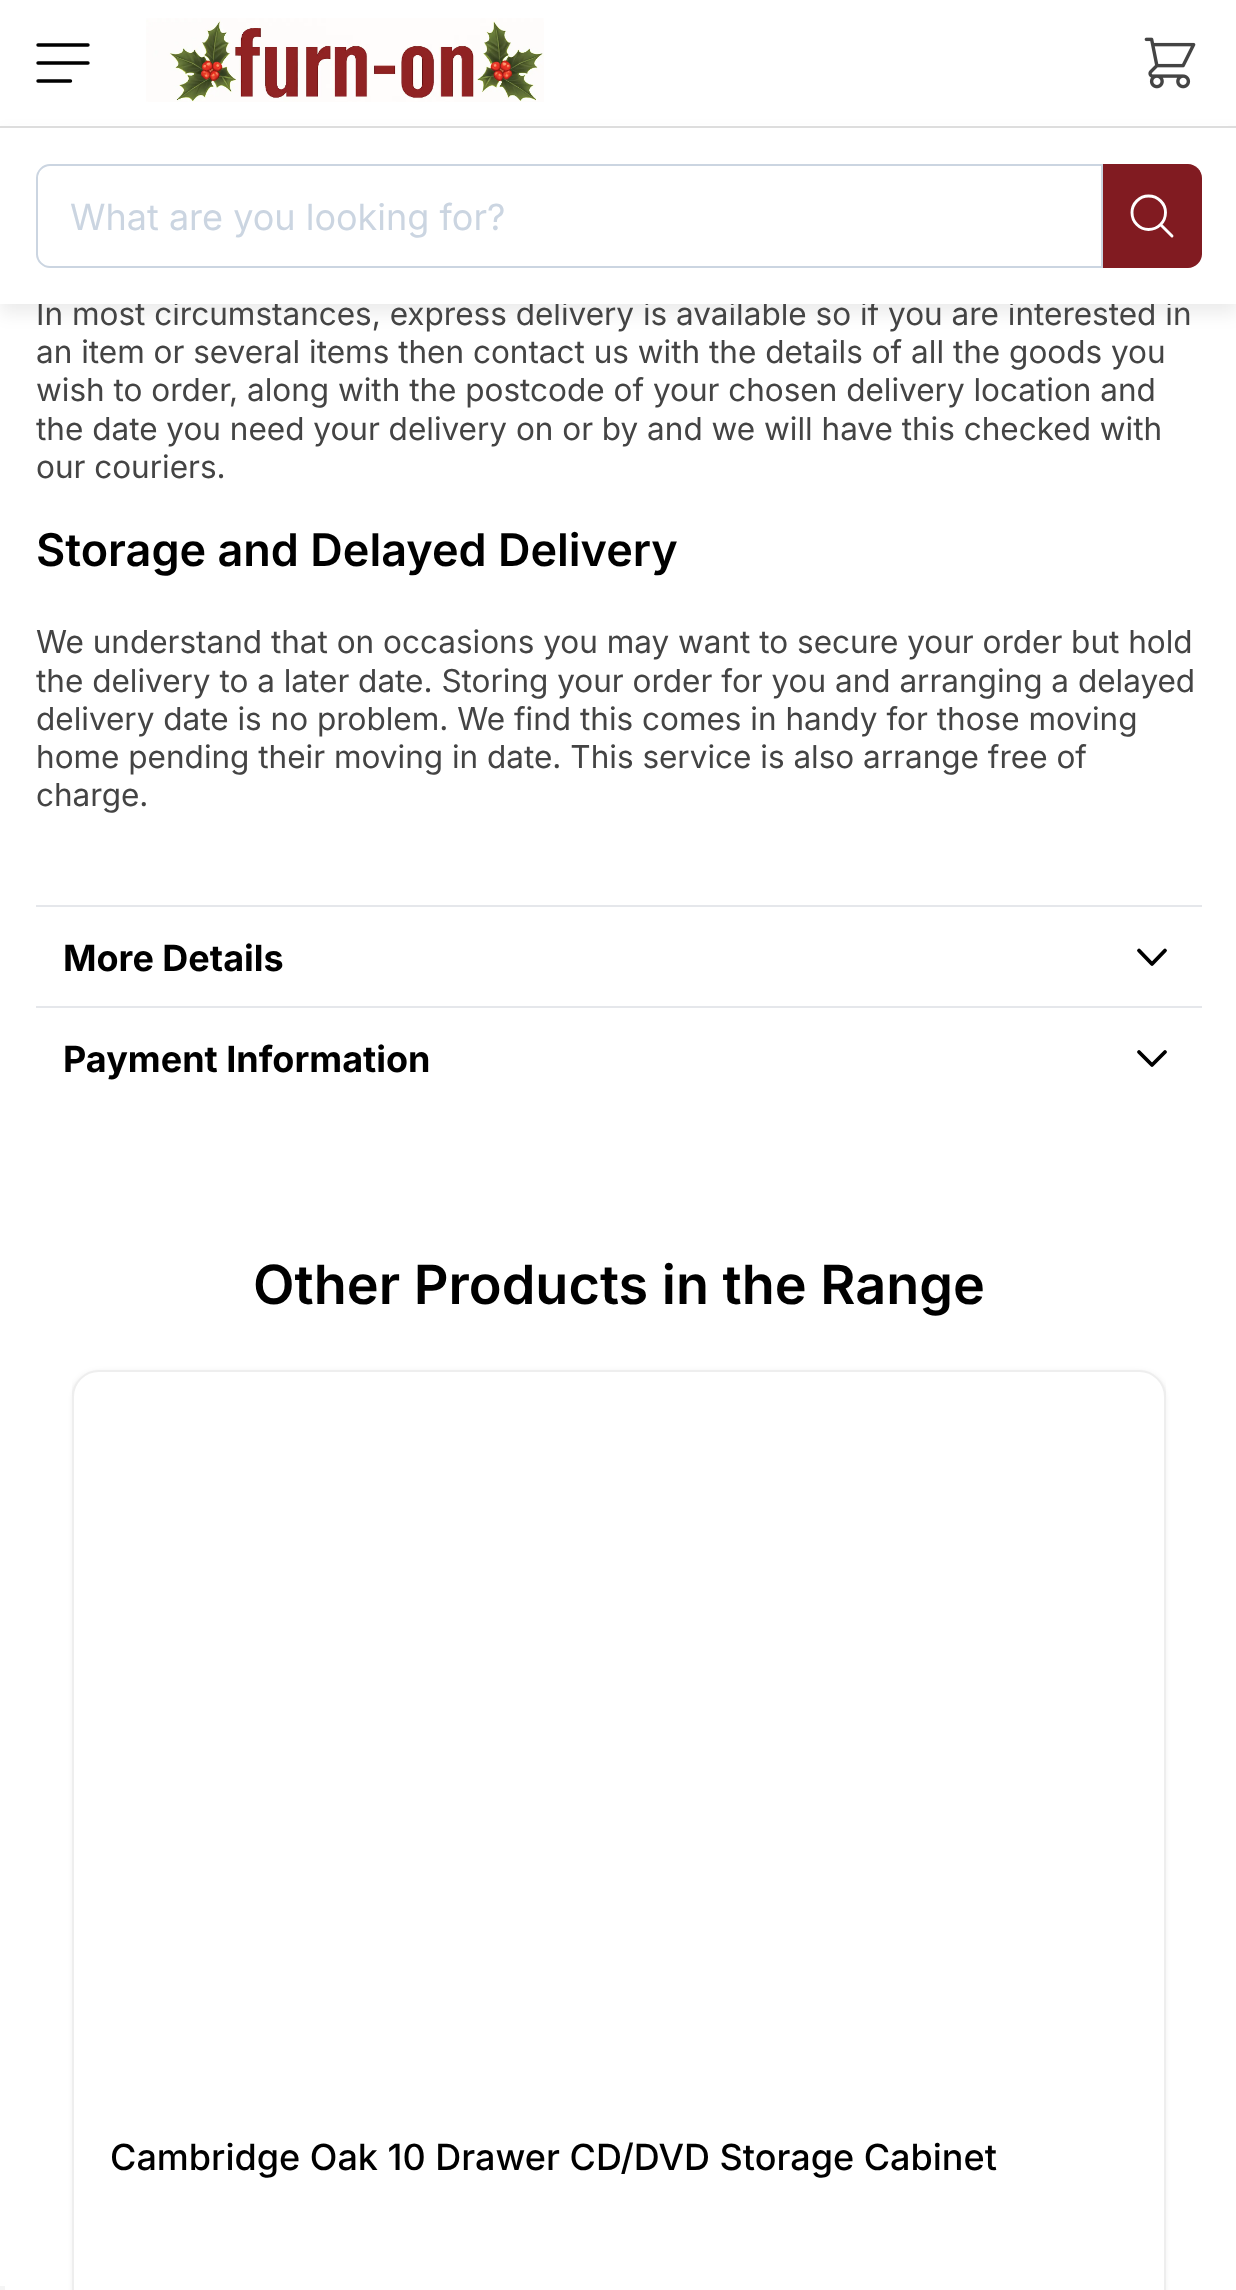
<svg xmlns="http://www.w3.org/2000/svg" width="1236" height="2290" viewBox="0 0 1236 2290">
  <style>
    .t1 { font: 31.5px Inter; fill: #444; }
    .t2 { font: 36px Inter; fill: #cbd5e1; }
    .t3 { font: 600 45px Inter; fill: #000; }
    .t4 { font: bold 36px Inter; fill: #000; }
    .t5 { font: 600 54px Inter; fill: #000; }
    .t6 { font: 500 36px Inter; fill: #000; }
  </style>
  <defs>
    <clipPath id="clip1"><rect x="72" y="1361" width="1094" height="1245"/></clipPath>
  </defs>
  <rect width="100%" height="100%" fill="#fff"/>
  <rect x="0" y="135" width="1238" height="178" fill="#00000014" filter="blur(9px)"/>
  <rect x="10" y="125" width="1218" height="1" fill="#fff"/>
  <path d="M38 63H88M38 45H88M38 81H70.5" fill="none" stroke="#000" stroke-width="3.4" stroke-linecap="round" stroke-linejoin="round"/>
  <image x="146" y="18" width="398" height="84" href="images/1.png"/>
  <image x="1144" y="37" width="52" height="52" href="images/2.png"/>
  <text x="36" y="325" class="t1">In most circumstances, express delivery is available so if you are interested in</text>
  <rect x="0" y="128" width="1236" height="176" fill="#fff"/>
  <rect x="0" y="126" width="1236" height="2" fill="#ddd"/>
  <path d="M50 165H1102V267H50C43 267 37 261 37 254V178C37 171 43 165 50 165Z" fill="none" stroke="#cbd5e1" stroke-width="2"/>
  <text x="70" y="230" class="t2">What are you looking for?</text>
  <path d="M1103 164H1188C1195.5 164 1202 170.5 1202 178V254C1202 261.5 1195.5 268 1188 268H1103Z" fill="#811b21"/>
  <path d="M1148.5 229.5C1158 229.5 1165.5 222 1165.5 212.5C1165.5 203.5 1158 196 1148.5 196C1139.5 196 1132 203.5 1132 212.5C1132 222 1139.5 229.5 1148.5 229.5ZM1160.5 224.5L1172 236" fill="none" stroke="#fff" stroke-width="2.9" stroke-linecap="round" stroke-linejoin="round"/>
  <text x="36" y="363" class="t1">an item or several items then contact us with the details of all the goods you</text>
  <text x="36" y="401" class="t1">wish to order, along with the postcode of your chosen delivery location and</text>
  <text x="36" y="440" class="t1">the date you need your delivery on or by and we will have this checked with</text>
  <text x="36" y="478" class="t1">our couriers.</text>
  <text x="36" y="566" class="t3">Storage and Delayed Delivery</text>
  <text x="36" y="653" class="t1">We understand that on occasions you may want to secure your order but hold</text>
  <text x="36" y="692" class="t1">the delivery to a later date. Storing your order for you and arranging a delayed</text>
  <text x="36" y="730" class="t1">delivery date is no problem. We find this comes in handy for those moving</text>
  <text x="36" y="768" class="t1">home pending their moving in date. This service is also arrange free of</text>
  <text x="36" y="806" class="t1">charge.</text>
  <rect x="36" y="905" width="1166" height="2" fill="#e5e7eb"/>
  <text x="63" y="971" class="t4">More Details</text>
  <path d="M1165 950.5L1152 964L1139 950.5" fill="none" stroke="#000" stroke-width="3.8" stroke-linecap="round" stroke-linejoin="round"/>
  <rect x="36" y="1006" width="1166" height="2" fill="#e5e7eb"/>
  <text x="63" y="1072" class="t4">Payment Information</text>
  <path d="M1165 1052L1152 1065L1139 1052" fill="none" stroke="#000" stroke-width="3.8" stroke-linecap="round" stroke-linejoin="round"/>
  <text x="253" y="1304" class="t5">Other Products in the Range</text>
  <g clip-path="url(#clip1)">
    <rect x="72" y="1373" width="1094" height="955" rx="27" fill="#0000001a" filter="blur(3.5px)"/>
  </g>
  <rect x="72" y="1373" width="1094" height="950" rx="27" fill="#0000000f" filter="blur(2px)"/>
  <rect x="73" y="1371" width="1092" height="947" rx="26" fill="#fff" stroke="#eee" stroke-width="2"/>
  <text x="110" y="2170" class="t6">Cambridge Oak 10 Drawer CD/DVD Storage Cabinet</text>
  <rect x="0" y="2286" width="5" height="4" fill="#f5f5f5"/>
</svg>
